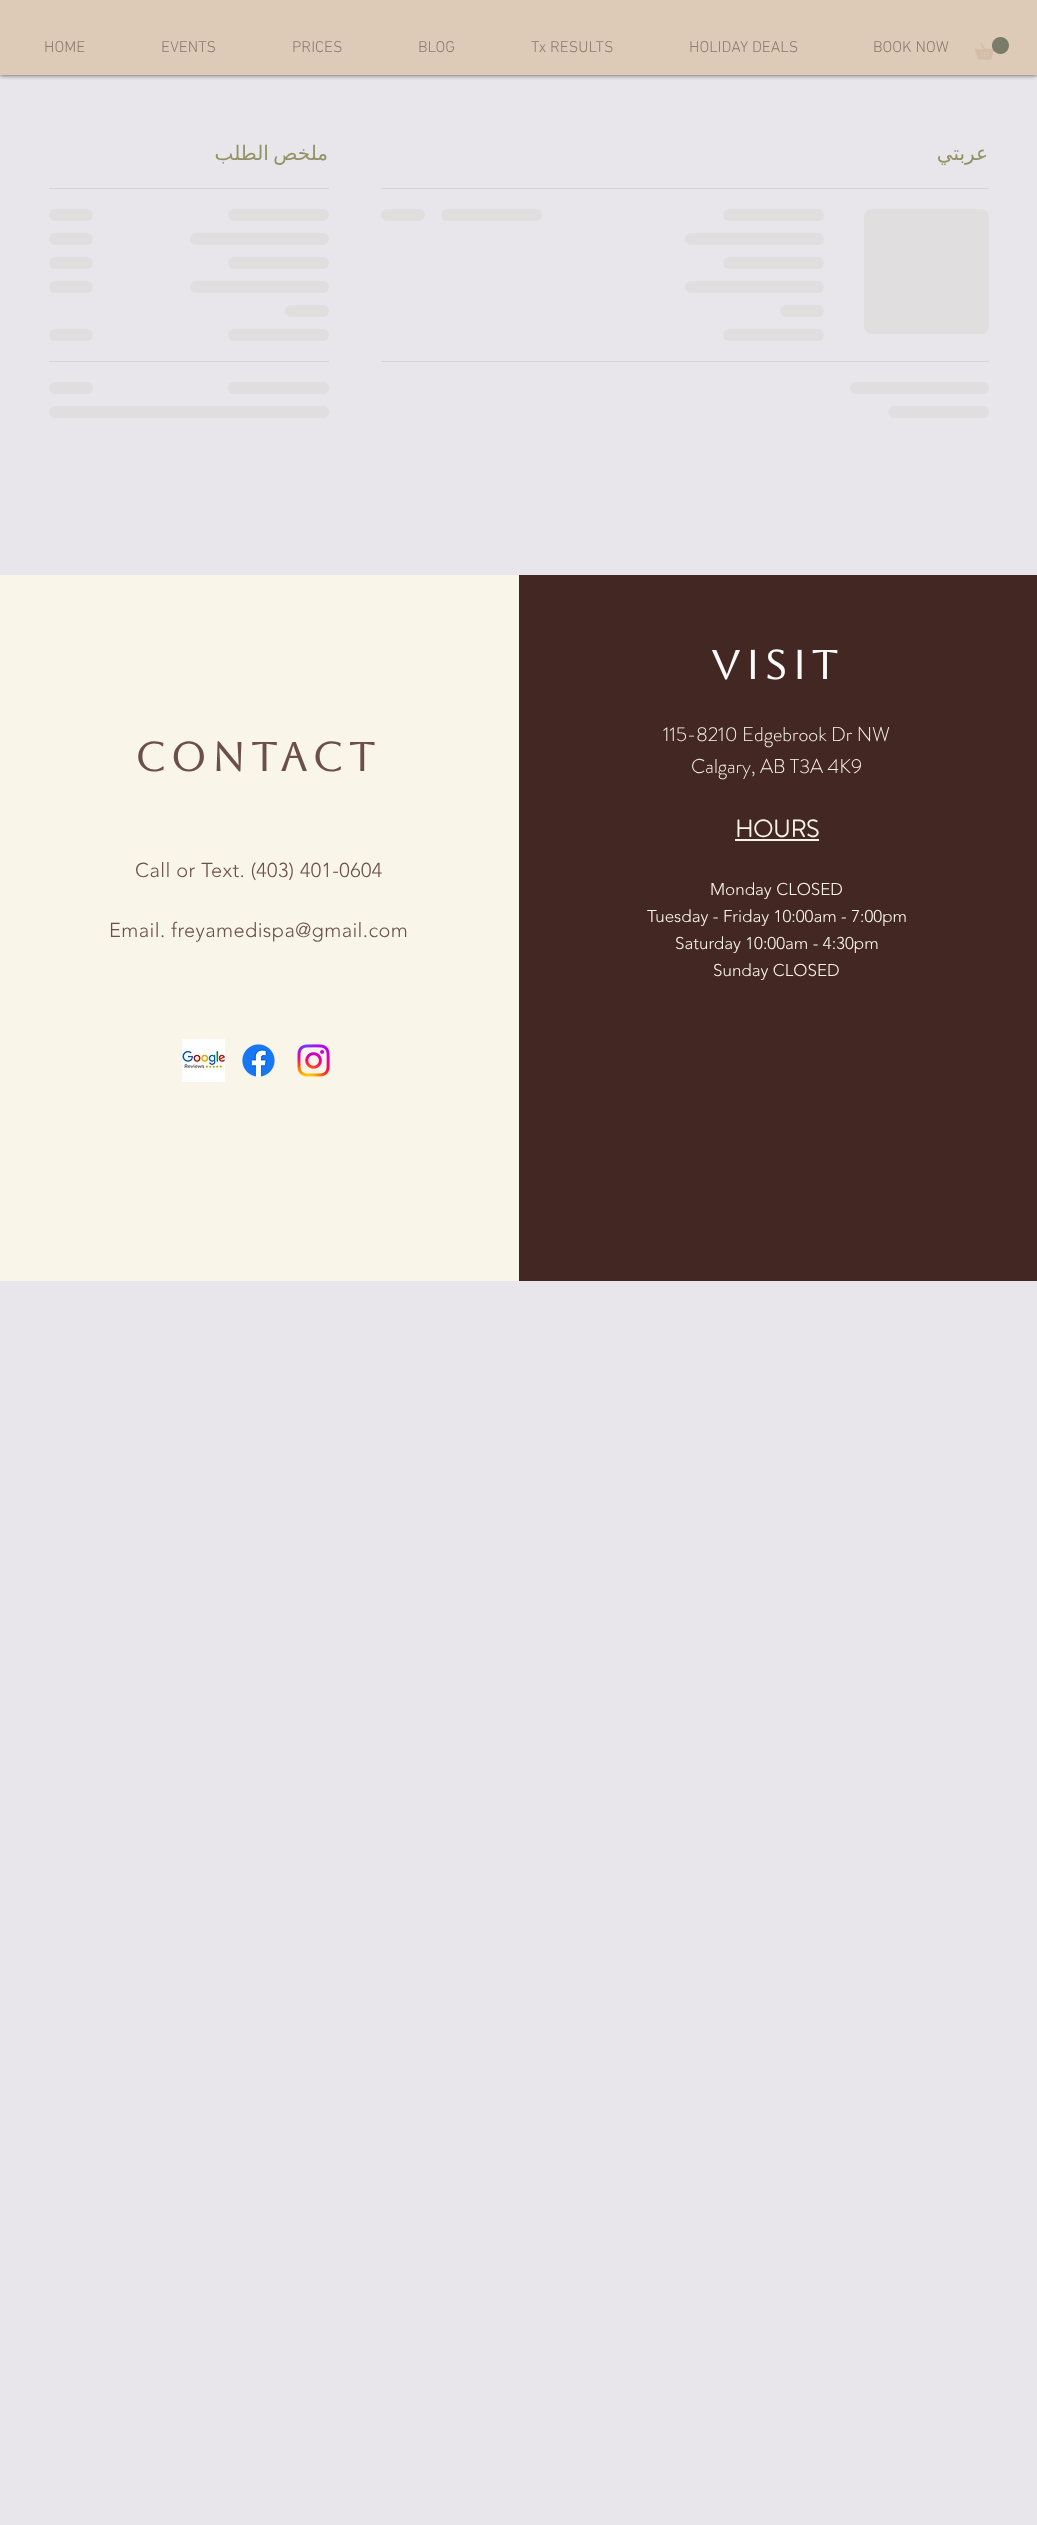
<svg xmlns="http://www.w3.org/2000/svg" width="1037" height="2525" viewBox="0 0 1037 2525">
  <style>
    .t1 { font: 300 16px 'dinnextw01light'; fill: #90796d; }
    .t2 { font: 20px DejaVu Sans; direction: rtl; fill: #919365; }
    .t3 { font: bold 40px Aboreto; letter-spacing: 6px; fill: #6a5048; }
    .t4 { font: 300 20px 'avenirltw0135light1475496'; letter-spacing: 0.4px; fill: #6a5048; }
    .t5 { font: bold 40px Aboreto; letter-spacing: 6px; fill: #fafafa; }
    .t6 { font: 300 20px 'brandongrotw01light'; fill: #faf5e9; }
    .t7 { font: bold 24px 'brandongrotw01light'; fill: #faf5e9; }
    .t8 { font: 300 17px 'avenirltw0135light1475496'; fill: #faf5e9; }
  </style>
  <defs>
    <linearGradient id="g1" gradientUnits="userSpaceOnUse" x1="49" y1="215" x2="225" y2="215"><stop offset="0.25" stop-color="#e0dede"/><stop offset="0.37" stop-color="#d7d5d0"/><stop offset="0.63" stop-color="#e0dede"/></linearGradient>
    <linearGradient id="g2" gradientUnits="userSpaceOnUse" x1="228" y1="215" x2="632" y2="215"><stop offset="0.25" stop-color="#e0dede"/><stop offset="0.37" stop-color="#d7d5d0"/><stop offset="0.63" stop-color="#e0dede"/></linearGradient>
    <linearGradient id="g3" gradientUnits="userSpaceOnUse" x1="49" y1="239" x2="225" y2="239"><stop offset="0.25" stop-color="#e0dede"/><stop offset="0.37" stop-color="#d7d5d0"/><stop offset="0.63" stop-color="#e0dede"/></linearGradient>
    <linearGradient id="g4" gradientUnits="userSpaceOnUse" x1="190" y1="239" x2="746" y2="239"><stop offset="0.25" stop-color="#e0dede"/><stop offset="0.37" stop-color="#d7d5d0"/><stop offset="0.63" stop-color="#e0dede"/></linearGradient>
    <linearGradient id="g5" gradientUnits="userSpaceOnUse" x1="49" y1="263" x2="225" y2="263"><stop offset="0.25" stop-color="#e0dede"/><stop offset="0.37" stop-color="#d7d5d0"/><stop offset="0.63" stop-color="#e0dede"/></linearGradient>
    <linearGradient id="g6" gradientUnits="userSpaceOnUse" x1="228" y1="263" x2="632" y2="263"><stop offset="0.25" stop-color="#e0dede"/><stop offset="0.37" stop-color="#d7d5d0"/><stop offset="0.63" stop-color="#e0dede"/></linearGradient>
    <linearGradient id="g7" gradientUnits="userSpaceOnUse" x1="49" y1="287" x2="225" y2="287"><stop offset="0.25" stop-color="#e0dede"/><stop offset="0.37" stop-color="#d7d5d0"/><stop offset="0.63" stop-color="#e0dede"/></linearGradient>
    <linearGradient id="g8" gradientUnits="userSpaceOnUse" x1="190" y1="287" x2="746" y2="287"><stop offset="0.25" stop-color="#e0dede"/><stop offset="0.37" stop-color="#d7d5d0"/><stop offset="0.63" stop-color="#e0dede"/></linearGradient>
    <linearGradient id="g9" gradientUnits="userSpaceOnUse" x1="285" y1="311" x2="461" y2="311"><stop offset="0.25" stop-color="#e0dede"/><stop offset="0.37" stop-color="#d7d5d0"/><stop offset="0.63" stop-color="#e0dede"/></linearGradient>
    <linearGradient id="g10" gradientUnits="userSpaceOnUse" x1="49" y1="335" x2="225" y2="335"><stop offset="0.25" stop-color="#e0dede"/><stop offset="0.37" stop-color="#d7d5d0"/><stop offset="0.63" stop-color="#e0dede"/></linearGradient>
    <linearGradient id="g11" gradientUnits="userSpaceOnUse" x1="228" y1="335" x2="632" y2="335"><stop offset="0.25" stop-color="#e0dede"/><stop offset="0.37" stop-color="#d7d5d0"/><stop offset="0.63" stop-color="#e0dede"/></linearGradient>
    <linearGradient id="g12" gradientUnits="userSpaceOnUse" x1="49" y1="388" x2="225" y2="388"><stop offset="0.25" stop-color="#e0dede"/><stop offset="0.37" stop-color="#d7d5d0"/><stop offset="0.63" stop-color="#e0dede"/></linearGradient>
    <linearGradient id="g13" gradientUnits="userSpaceOnUse" x1="228" y1="388" x2="632" y2="388"><stop offset="0.25" stop-color="#e0dede"/><stop offset="0.37" stop-color="#d7d5d0"/><stop offset="0.63" stop-color="#e0dede"/></linearGradient>
    <linearGradient id="g14" gradientUnits="userSpaceOnUse" x1="49" y1="412" x2="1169" y2="412"><stop offset="0.25" stop-color="#e0dede"/><stop offset="0.37" stop-color="#d7d5d0"/><stop offset="0.63" stop-color="#e0dede"/></linearGradient>
    <linearGradient id="g15" gradientUnits="userSpaceOnUse" x1="381" y1="215" x2="557" y2="215"><stop offset="0.25" stop-color="#e0dede"/><stop offset="0.37" stop-color="#d7d5d0"/><stop offset="0.63" stop-color="#e0dede"/></linearGradient>
    <linearGradient id="g16" gradientUnits="userSpaceOnUse" x1="441" y1="215" x2="845" y2="215"><stop offset="0.25" stop-color="#e0dede"/><stop offset="0.37" stop-color="#d7d5d0"/><stop offset="0.63" stop-color="#e0dede"/></linearGradient>
    <linearGradient id="g17" gradientUnits="userSpaceOnUse" x1="723" y1="215" x2="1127" y2="215"><stop offset="0.25" stop-color="#e0dede"/><stop offset="0.37" stop-color="#d7d5d0"/><stop offset="0.63" stop-color="#e0dede"/></linearGradient>
    <linearGradient id="g18" gradientUnits="userSpaceOnUse" x1="685" y1="239" x2="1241" y2="239"><stop offset="0.25" stop-color="#e0dede"/><stop offset="0.37" stop-color="#d7d5d0"/><stop offset="0.63" stop-color="#e0dede"/></linearGradient>
    <linearGradient id="g19" gradientUnits="userSpaceOnUse" x1="723" y1="263" x2="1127" y2="263"><stop offset="0.25" stop-color="#e0dede"/><stop offset="0.37" stop-color="#d7d5d0"/><stop offset="0.63" stop-color="#e0dede"/></linearGradient>
    <linearGradient id="g20" gradientUnits="userSpaceOnUse" x1="685" y1="287" x2="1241" y2="287"><stop offset="0.25" stop-color="#e0dede"/><stop offset="0.37" stop-color="#d7d5d0"/><stop offset="0.63" stop-color="#e0dede"/></linearGradient>
    <linearGradient id="g21" gradientUnits="userSpaceOnUse" x1="780" y1="311" x2="956" y2="311"><stop offset="0.25" stop-color="#e0dede"/><stop offset="0.37" stop-color="#d7d5d0"/><stop offset="0.63" stop-color="#e0dede"/></linearGradient>
    <linearGradient id="g22" gradientUnits="userSpaceOnUse" x1="723" y1="335" x2="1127" y2="335"><stop offset="0.25" stop-color="#e0dede"/><stop offset="0.37" stop-color="#d7d5d0"/><stop offset="0.63" stop-color="#e0dede"/></linearGradient>
    <linearGradient id="g23" gradientUnits="userSpaceOnUse" x1="864" y1="272" x2="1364" y2="272"><stop offset="0.25" stop-color="#e0dede"/><stop offset="0.37" stop-color="#d7d5d0"/><stop offset="0.63" stop-color="#e0dede"/></linearGradient>
    <linearGradient id="g24" gradientUnits="userSpaceOnUse" x1="850" y1="388" x2="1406" y2="388"><stop offset="0.25" stop-color="#e0dede"/><stop offset="0.37" stop-color="#d7d5d0"/><stop offset="0.63" stop-color="#e0dede"/></linearGradient>
    <linearGradient id="g25" gradientUnits="userSpaceOnUse" x1="888" y1="412" x2="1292" y2="412"><stop offset="0.25" stop-color="#e0dede"/><stop offset="0.37" stop-color="#d7d5d0"/><stop offset="0.63" stop-color="#e0dede"/></linearGradient>
  </defs>
  <rect width="100%" height="100%" fill="#e9e6eb"/>
  <rect x="0" y="0" width="1037" height="75" fill="#000000b3" filter="blur(2.5px)"/>
  <rect x="0" y="0" width="1037" height="75" fill="#ddcbb7"/>
  <text x="44" y="52" class="t1">HOME</text>
  <text x="161" y="52" class="t1">EVENTS</text>
  <text x="292" y="52" class="t1">PRICES</text>
  <text x="418" y="52" class="t1">BLOG</text>
  <text x="531" y="52" class="t1">Tx RESULTS</text>
  <text x="689" y="52" class="t1">HOLIDAY DEALS</text>
  <text x="873" y="52" class="t1">BOOK NOW</text>
  <image x="975" y="37" width="34" height="23" href="images/1.png"/>
  <rect x="49" y="188" width="280" height="1" fill="#d7d5d0"/>
  <text x="328" y="160" word-spacing="-2" class="t2">ملخص الطلب</text>
  <rect x="49" y="209" width="44" height="12" rx="6" fill="url(#g1)"/>
  <rect x="228" y="209" width="101" height="12" rx="6" fill="url(#g2)"/>
  <rect x="49" y="233" width="44" height="12" rx="6" fill="url(#g3)"/>
  <rect x="190" y="233" width="139" height="12" rx="6" fill="url(#g4)"/>
  <rect x="49" y="257" width="44" height="12" rx="6" fill="url(#g5)"/>
  <rect x="228" y="257" width="101" height="12" rx="6" fill="url(#g6)"/>
  <rect x="49" y="281" width="44" height="12" rx="6" fill="url(#g7)"/>
  <rect x="190" y="281" width="139" height="12" rx="6" fill="url(#g8)"/>
  <rect x="285" y="305" width="44" height="12" rx="6" fill="url(#g9)"/>
  <rect x="49" y="329" width="44" height="12" rx="6" fill="url(#g10)"/>
  <rect x="228" y="329" width="101" height="12" rx="6" fill="url(#g11)"/>
  <rect x="49" y="361" width="280" height="1" fill="#d7d5d0"/>
  <rect x="49" y="382" width="44" height="12" rx="6" fill="url(#g12)"/>
  <rect x="228" y="382" width="101" height="12" rx="6" fill="url(#g13)"/>
  <rect x="49" y="406" width="280" height="12" rx="6" fill="url(#g14)"/>
  <rect x="381" y="188" width="608" height="1" fill="#d7d5d0"/>
  <text x="988" y="160" class="t2">عربتي</text>
  <rect x="381" y="209" width="44" height="12" rx="6" fill="url(#g15)"/>
  <rect x="441" y="209" width="101" height="12" rx="6" fill="url(#g16)"/>
  <rect x="723" y="209" width="101" height="12" rx="6" fill="url(#g17)"/>
  <rect x="685" y="233" width="139" height="12" rx="6" fill="url(#g18)"/>
  <rect x="723" y="257" width="101" height="12" rx="6" fill="url(#g19)"/>
  <rect x="685" y="281" width="139" height="12" rx="6" fill="url(#g20)"/>
  <rect x="780" y="305" width="44" height="12" rx="6" fill="url(#g21)"/>
  <rect x="723" y="329" width="101" height="12" rx="6" fill="url(#g22)"/>
  <rect x="864" y="209" width="125" height="125" rx="8" fill="url(#g23)"/>
  <rect x="381" y="361" width="608" height="1" fill="#d7d5d0"/>
  <rect x="850" y="382" width="139" height="12" rx="6" fill="url(#g24)"/>
  <rect x="888" y="406" width="101" height="12" rx="6" fill="url(#g25)"/>
  <rect x="0" y="575" width="519" height="706" fill="#faf5e9"/>
  <text x="135" y="771" class="t3">CONTACT</text>
  <text x="135" y="877" class="t4">Call or Text. (403) 401-0604</text>
  <text x="109" y="937" class="t4">Email. freyamedispa@gmail.com</text>
  <image x="182" y="1039" width="43" height="43" href="images/2.png"/>
  <image x="242" y="1044" width="33" height="33" href="images/3.png"/>
  <image x="297" y="1044" width="33" height="33" href="images/4.png"/>
  <rect x="519" y="575" width="518" height="706" fill="#432723"/>
  <text x="711" y="679" class="t5">VISIT</text>
  <text x="663" y="741" class="t6">115-8210 Edgebrook Dr NW</text>
  <text x="691" y="773" class="t6">Calgary, AB T3A 4K9</text>
  <text x="735" y="837" class="t7">HOURS</text>
  <rect x="735" y="839" width="84" height="2" fill="#faf5e9"/>
  <text x="710" y="895" class="t8">Monday CLOSED</text>
  <text x="647" y="922" class="t8">Tuesday - Friday 10:00am - 7:00pm</text>
  <text x="675" y="949" class="t8">Saturday 10:00am - 4:30pm</text>
  <text x="713" y="976" class="t8">Sunday CLOSED</text>
</svg>
